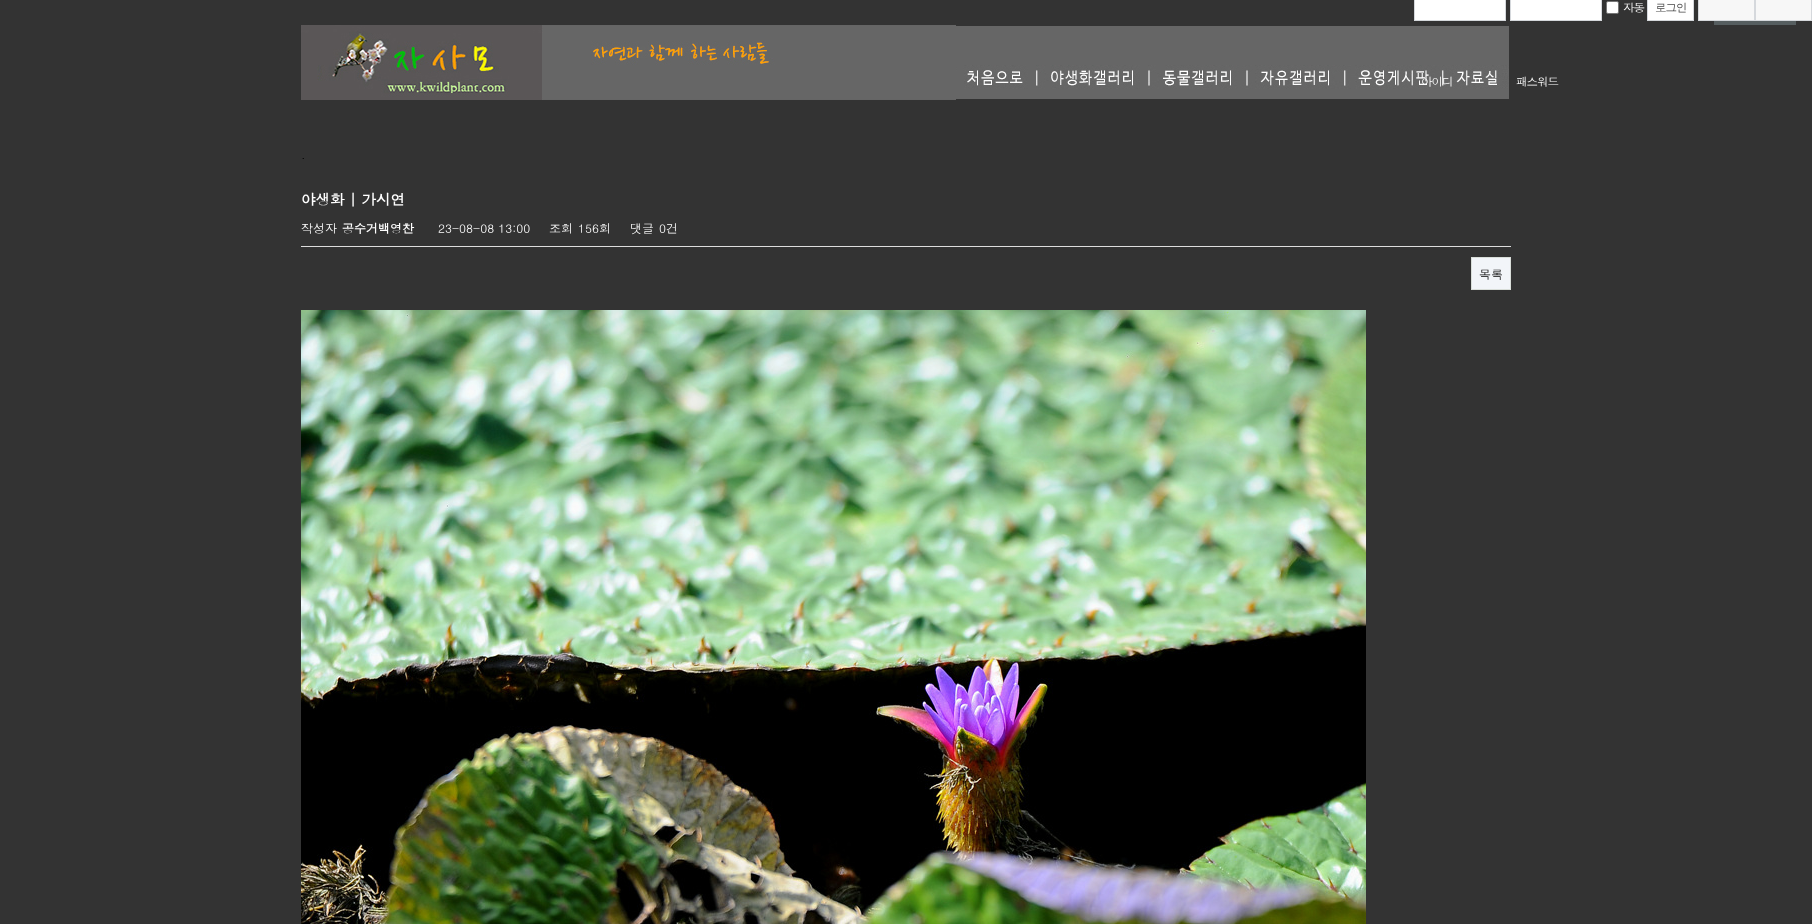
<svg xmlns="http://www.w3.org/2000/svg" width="1812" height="924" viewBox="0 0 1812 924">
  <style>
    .t1 { font: 11.5px Dotum; letter-spacing: -1px; fill: #fff; }
    .t2 { font: 11.5px Dotum; letter-spacing: -1px; fill: #484848; }
    .t3 { font: 12px Dotum; fill: #000; }
    .t4 { font: bold 14.5px Dotum; fill: #fff; }
    .t5 { font: 12px Dotum; fill: #fff; }
    .t6 { font: bold 12px Dotum; fill: #fff; }
  </style>
  <rect width="100%" height="100%" fill="#333"/>
  <image x="301" y="25" width="242" height="75" href="images/1.png"/>
  <image x="543" y="25" width="413" height="75" href="images/2.png"/>
  <image x="956" y="26" width="88" height="73" href="images/3.png"/>
  <image x="1044" y="26" width="113" height="73" href="images/4.png"/>
  <image x="1157" y="26" width="98" height="73" href="images/5.png"/>
  <image x="1255" y="26" width="100" height="73" href="images/6.png"/>
  <image x="1355" y="26" width="97" height="73" href="images/7.png"/>
  <image x="1452" y="26" width="57" height="73" href="images/8.png"/>
  <rect x="1414.5" y="-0.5" width="91" height="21" fill="#fff" stroke="#d5d8dc"/>
  <rect x="1510.5" y="-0.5" width="91" height="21" fill="#fff" stroke="#d5d8dc"/>
  <rect x="1606.5" y="1.5" width="12" height="12" rx="1.5" fill="#fff" stroke="#767676"/>
  <text x="1623" y="12" class="t1">자동</text>
  <rect x="1647.5" y="-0.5" width="46" height="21" fill="#fff" stroke="#d5d8dc"/>
  <text x="1655" y="12" class="t2">로그인</text>
  <rect x="1698.5" y="-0.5" width="56" height="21" fill="#f7f7f7" stroke="#d5d8dc"/>
  <rect x="1755.5" y="-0.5" width="56" height="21" fill="#f7f7f7" stroke="#d5d8dc"/>
  <text x="1421" y="86" class="t1">아이디</text>
  <text x="1516" y="86" class="t1">패스워드</text>
  <rect x="1714" y="21" width="82" height="4" fill="#565e60"/>
  <text x="301" y="159" class="t3">.</text>
  <text x="301" y="205" class="t4">야생화 | 가시연</text>
  <rect x="301" y="246" width="1210" height="1" fill="#ddd"/>
  <text x="301" y="233" class="t5">작성자</text>
  <text x="342" y="233" class="t6">공수거백영찬</text>
  <text x="438" y="233" class="t5">23-08-08 13:00</text>
  <text x="549" y="233" class="t5">조회</text>
  <text x="578" y="233" class="t5">156회</text>
  <text x="630" y="233" class="t5">댓글</text>
  <text x="659" y="233" class="t5">0건</text>
  <rect x="1471.5" y="257.5" width="39" height="32" fill="#f2f5f9" stroke="#d9ded9"/>
  <text x="1479" y="279" class="t3">목록</text>
  <image x="301" y="310" width="1065" height="614" href="images/9.png"/>
</svg>
